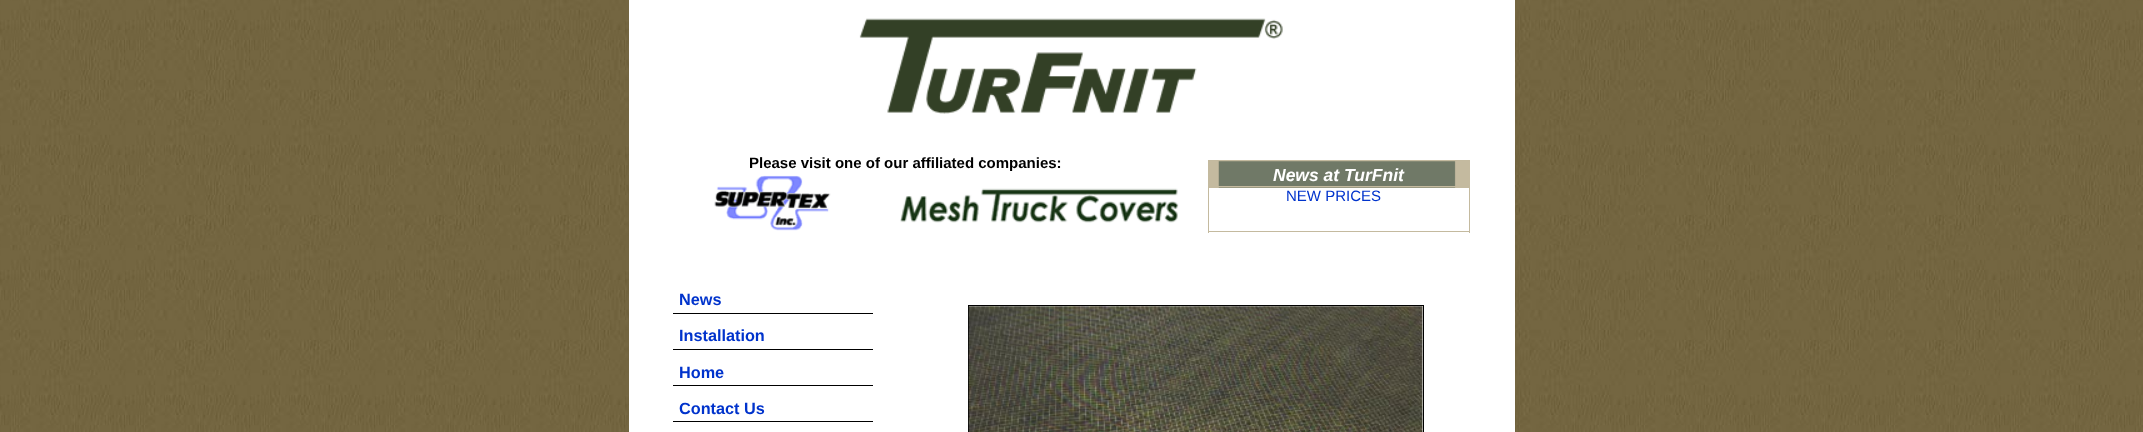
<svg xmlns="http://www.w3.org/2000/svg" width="2143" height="432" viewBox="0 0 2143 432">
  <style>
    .t1 { font: bold 15px Liberation Sans; fill: #000; }
    .t2 { font: italic bold 17.5px Liberation Sans; fill: #fff; }
    .t3 { font: 15px Liberation Sans; fill: #03c; }
    .t4 { font: bold 16.25px Liberation Sans; fill: #03c; }
  </style>
  <rect width="100%" height="100%" fill="#fff"/>
  <image x="0" y="0" width="2143" height="432" href="images/1.png"/>
  <rect x="629" y="0" width="886" height="432" fill="#fff"/>
  <image x="859" y="18" width="424" height="96" href="images/2.png"/>
  <text x="749" y="168" class="t1">Please visit one of our affiliated companies:</text>
  <rect x="1208" y="160" width="262" height="1" fill="#c4ba9f"/>
  <rect x="1469" y="160" width="1" height="73" fill="#c4ba9f"/>
  <rect x="1208" y="231" width="262" height="1" fill="#c4ba9f"/>
  <rect x="1208" y="160" width="1" height="73" fill="#c4ba9f"/>
  <rect x="1209" y="161" width="260" height="27" fill="#c4ba9f"/>
  <image x="1218" y="161" width="238" height="27" href="images/3.png"/>
  <rect x="1218" y="186" width="238" height="1" fill="#c4ba9f"/>
  <text x="1273" y="181" class="t2">News at TurFnit</text>
  <text x="1286" y="201" class="t3">NEW PRICES</text>
  <image x="714" y="175" width="117" height="56" href="images/4.png"/>
  <image x="900" y="171" width="279" height="52" href="images/5.png"/>
  <rect x="673" y="313" width="200" height="1" fill="#000"/>
  <text x="679" y="305" class="t4">News</text>
  <rect x="673" y="349" width="200" height="1" fill="#000"/>
  <text x="679" y="341" class="t4">Installation</text>
  <rect x="673" y="385" width="200" height="1" fill="#000"/>
  <text x="679" y="378" class="t4">Home</text>
  <rect x="673" y="421" width="200" height="1" fill="#000"/>
  <text x="679" y="414" class="t4">Contact Us</text>
  <rect x="968.5" y="305.5" width="455" height="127" fill="none" stroke="#000"/>
  <image x="968" y="306" width="455" height="126" href="images/6.png"/>
</svg>
